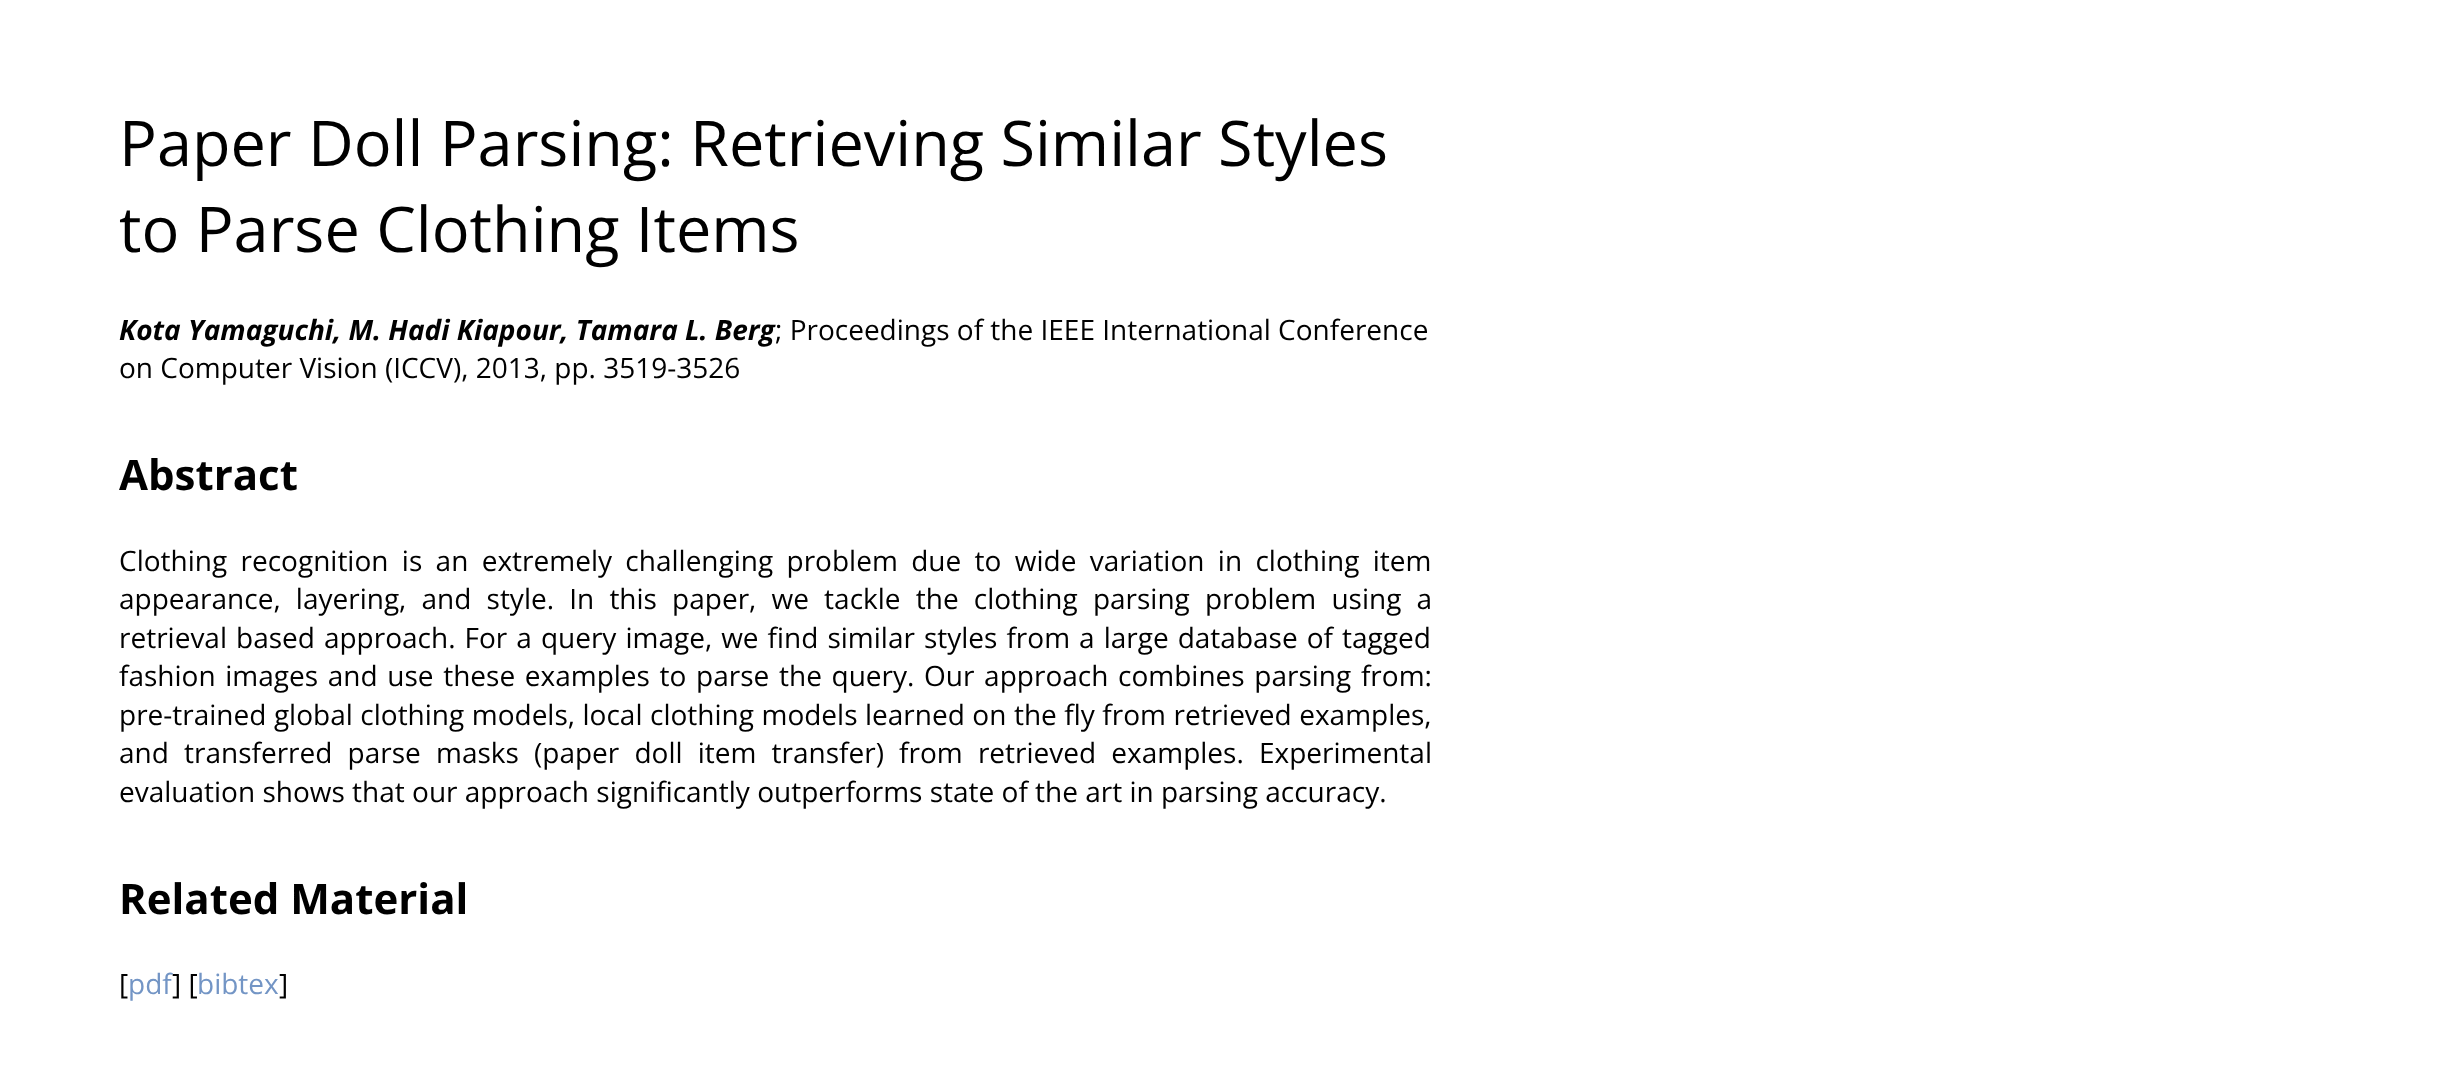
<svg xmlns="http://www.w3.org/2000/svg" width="2453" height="1079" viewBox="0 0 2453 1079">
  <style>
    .t1 { font: 63px Open Sans; fill: #000; }
    .t2 { font: italic bold 28px Open Sans; fill: #000; }
    .t3 { font: 28px Open Sans; fill: #000; }
    .t4 { font: bold 42px Open Sans; fill: #000; }
    .t5 { font: 28px Open Sans; fill: #7395c5; }
  </style>
  <rect width="100%" height="100%" fill="#fff"/>
  <text x="119" y="166" class="t1">Paper Doll Parsing: Retrieving Similar Styles</text>
  <text x="119" y="252" class="t1">to Parse Clothing Items</text>
  <text x="119" y="340" class="t2">Kota Yamaguchi, M. Hadi Kiapour, Tamara L. Berg</text>
  <text x="775" y="340" class="t3">; Proceedings of the IEEE International Conference</text>
  <text x="119" y="378" class="t3">on Computer Vision (ICCV), 2013, pp. 3519-3526</text>
  <text x="119" y="490" class="t4">Abstract</text>
  <text x="119" y="571" word-spacing="6.1" class="t3">Clothing recognition is an extremely challenging problem due to wide variation in clothing item</text>
  <text x="119" y="609" word-spacing="7.9" class="t3">appearance, layering, and style. In this paper, we tackle the clothing parsing problem using a</text>
  <text x="119" y="648" word-spacing="1.75" class="t3">retrieval based approach. For a query image, we find similar styles from a large database of tagged</text>
  <text x="119" y="686" word-spacing="2.4" class="t3">fashion images and use these examples to parse the query. Our approach combines parsing from:</text>
  <text x="119" y="725" word-spacing="0.25" class="t3">pre-trained global clothing models, local clothing models learned on the fly from retrieved examples,</text>
  <text x="119" y="763" word-spacing="7.9" class="t3">and transferred parse masks (paper doll item transfer) from retrieved examples. Experimental</text>
  <text x="119" y="802" class="t3">evaluation shows that our approach significantly outperforms state of the art in parsing accuracy.</text>
  <text x="119" y="914" class="t4">Related Material</text>
  <text x="119" y="994" class="t3">[</text>
  <text x="128" y="994" class="t5">pdf</text>
  <text x="172" y="994" class="t3">] [</text>
  <text x="197" y="994" class="t5">bibtex</text>
  <text x="279" y="994" class="t3">]</text>
</svg>
